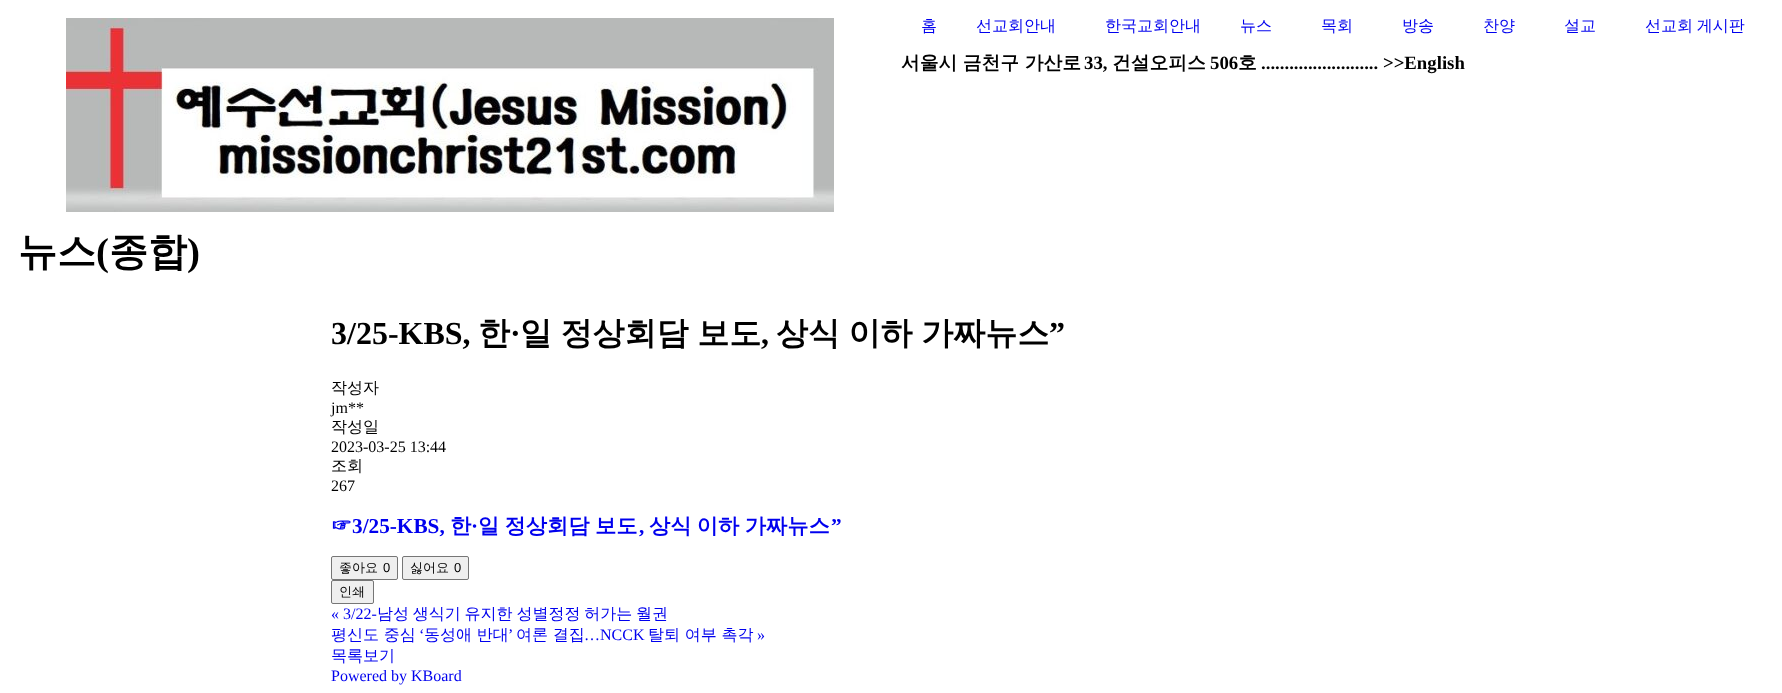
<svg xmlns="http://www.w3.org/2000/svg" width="1782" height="693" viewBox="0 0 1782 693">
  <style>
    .t1 { font: 500 16px WenQuanYi Zen Hei; fill: #00e; }
    .t2 { font: bold 18.75px WenQuanYi Zen Hei; fill: #000; }
    .t3 { font: bold 18.75px Liberation Serif; fill: #000; }
    .t4 { font: bold 39px WenQuanYi Zen Hei; fill: #000; }
    .t5 { font: bold 39px Liberation Serif; fill: #000; }
    .t6 { font: bold 32px Liberation Serif; fill: #000; }
    .t7 { font: bold 32px WenQuanYi Zen Hei; fill: #000; }
    .t8 { font: 500 16px WenQuanYi Zen Hei; fill: #000; }
    .t9 { font: 16px Liberation Serif; fill: #000; }
    .t10 { font: bold 21.25px WenQuanYi Zen Hei; fill: #00e; }
    .t11 { font: bold 21.25px Liberation Serif; fill: #00e; }
    .t12 { font: 500 13px WenQuanYi Zen Hei; fill: #000; }
    .t13 { font: 13px Liberation Sans; fill: #000; }
    .t14 { font: 16px Liberation Serif; fill: #00e; }
  </style>
  <rect width="100%" height="100%" fill="#fff"/>
  <image x="66" y="18" width="768" height="194" href="images/1.png"/>
  <text x="921" y="31" class="t1">홈</text>
  <text x="976" y="31" class="t1">선교회안내</text>
  <text x="1105" y="31" class="t1">한국교회안내</text>
  <text x="1240" y="31" class="t1">뉴스</text>
  <text x="1321" y="31" class="t1">목회</text>
  <text x="1402" y="31" class="t1">방송</text>
  <text x="1483" y="31" class="t1">찬양</text>
  <text x="1564" y="31" class="t1">설교</text>
  <text x="1645" y="31" word-spacing="-1" class="t1">선교회 게시판</text>
  <text x="901" y="69" class="t2">서울시 금천구 가산로</text>
  <text x="1084" y="69" class="t3">33,</text>
  <text x="1112" y="69" class="t2">건설오피스</text>
  <text x="1210" y="69" class="t3">506</text>
  <text x="1238" y="69" class="t2">호</text>
  <text x="1261" y="69" class="t3">.........................</text>
  <text x="1383" y="69" class="t3">&gt;&gt;English</text>
  <text x="18" y="265" class="t4">뉴스</text>
  <text x="96" y="265" class="t5">(</text>
  <text x="109" y="265" class="t4">종합</text>
  <text x="187" y="265" class="t5">)</text>
  <text x="331" y="344" class="t6">3/25-KBS,</text>
  <text x="478" y="344" class="t7">한</text>
  <text x="510" y="344" class="t6">·</text>
  <text x="520" y="344" word-spacing="-1" class="t7">일 정상회담 보도</text>
  <text x="776" y="344" word-spacing="-1" class="t7">상식 이하 가짜뉴스</text>
  <text x="1049" y="344" class="t6">”</text>
  <text x="761" y="344" class="t6">,</text>
  <text x="331" y="393" class="t8">작성자</text>
  <text x="331" y="413" class="t9">jm**</text>
  <text x="331" y="432" class="t8">작성일</text>
  <text x="331" y="452" class="t9">2023-03-25 13:44</text>
  <text x="331" y="471" class="t8">조회</text>
  <text x="331" y="491" class="t9">267</text>
  <text x="331" y="533" class="t10">☞</text>
  <text x="352" y="533" class="t11">3/25-KBS,</text>
  <text x="450" y="533" class="t10">한</text>
  <text x="471" y="533" class="t11">·</text>
  <text x="478" y="533" word-spacing="-1" class="t10">일 정상회담 보도</text>
  <text x="649" y="533" word-spacing="-1" class="t10">상식 이하 가짜뉴스</text>
  <text x="831" y="533" class="t11">”</text>
  <text x="639" y="533" class="t11">,</text>
  <rect x="331.5" y="556.5" width="66" height="23" rx="1.5" fill="#efefef" stroke="#767676"/>
  <text x="339" y="572" class="t12">좋아요</text>
  <text x="383" y="572" class="t13">0</text>
  <rect x="402.5" y="556.5" width="66" height="23" rx="1.5" fill="#efefef" stroke="#767676"/>
  <text x="410" y="572" class="t12">싫어요</text>
  <text x="454" y="572" class="t13">0</text>
  <rect x="331.5" y="580.5" width="42" height="23" rx="1.5" fill="#efefef" stroke="#767676"/>
  <text x="339" y="596" class="t12">인쇄</text>
  <text x="331" y="619" class="t14">« 3/22-</text>
  <text x="377" y="619" word-spacing="-1" class="t1">남성 생식기 유지한 성별정정 허가는 월권</text>
  <text x="331" y="640" class="t1">평신도 중심</text>
  <text x="419" y="640" class="t14">‘</text>
  <text x="424" y="640" class="t1">동성애 반대</text>
  <text x="508" y="640" class="t14">’</text>
  <text x="516" y="640" class="t1">여론 결집</text>
  <text x="584" y="640" class="t14">…NCCK</text>
  <text x="648" y="640" class="t1">탈퇴 여부 촉각</text>
  <text x="757" y="640" class="t14">»</text>
  <text x="331" y="661" class="t1">목록보기</text>
  <text x="331" y="681" class="t14">Powered by KBoard</text>
</svg>
